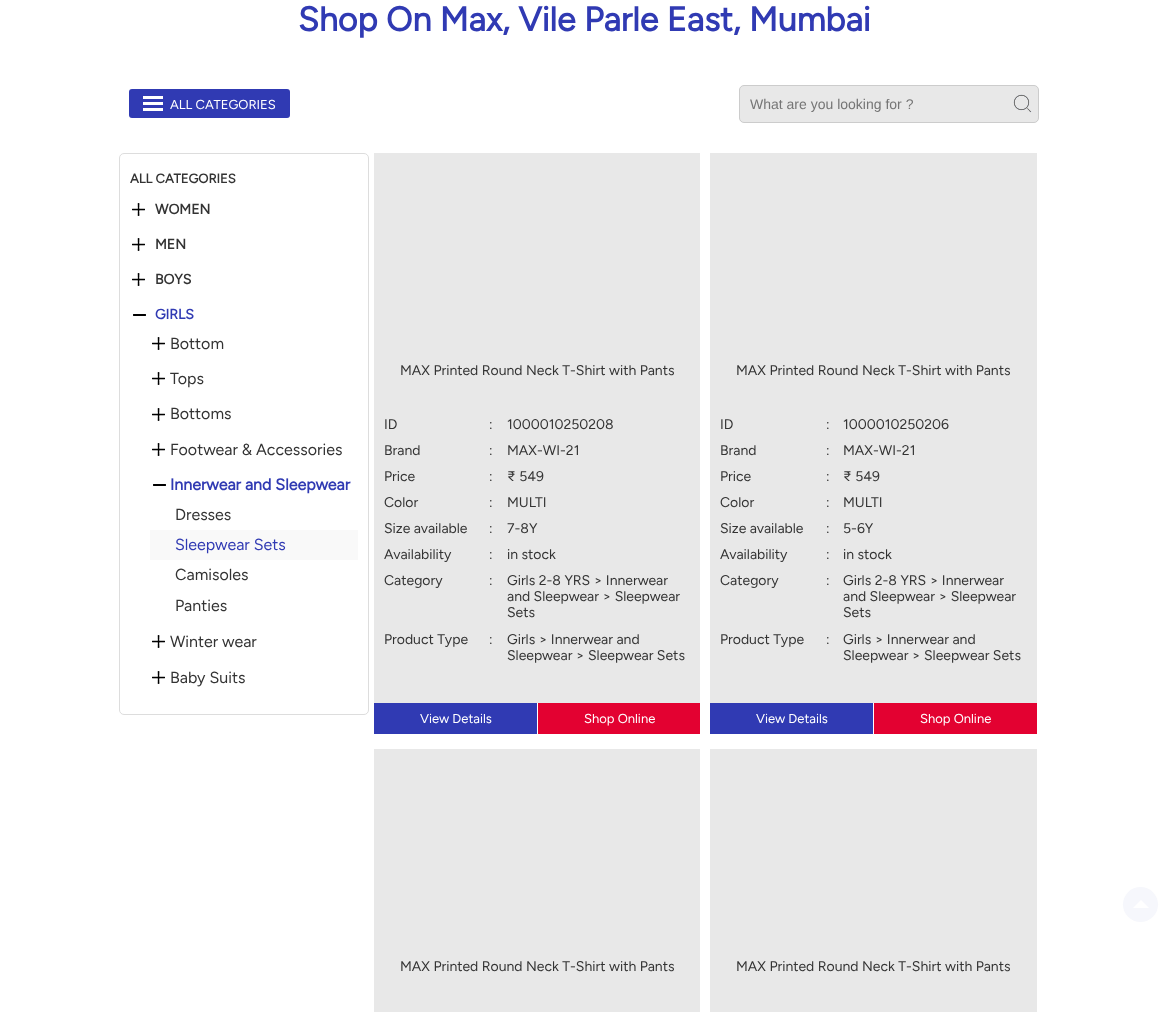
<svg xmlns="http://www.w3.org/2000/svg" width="1168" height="1012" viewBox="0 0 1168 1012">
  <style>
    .t1 { font: bold 34px Figtree; fill: #303ab3; }
    .t2 { font: 13px Figtree; fill: #fff; }
    .t3 { font: 14px Liberation Sans; fill: #757575; }
    .t4 { font: bold 13px Figtree; fill: #333; }
    .t5 { font: bold 14px Figtree; fill: #333; }
    .t6 { font: bold 14px Figtree; fill: #303ab3; }
    .t7 { font: 16px Figtree; fill: #333; }
    .t8 { font: bold 16px Figtree; fill: #303ab3; }
    .t9 { font: 16px Figtree; fill: #303ab3; }
    .t10 { font: 14px Figtree; fill: #333; }
  </style>
  <rect width="100%" height="100%" fill="#fff"/>
  <text x="298" y="31" class="t1">Shop On Max, Vile Parle East, Mumbai</text>
  <rect x="129" y="89" width="161" height="29" rx="3" fill="#303ab3"/>
  <rect x="143" y="96" width="20" height="3" fill="#fff"/>
  <rect x="143" y="102" width="20" height="3" fill="#fff"/>
  <rect x="143" y="108" width="20" height="3" fill="#fff"/>
  <text x="170" y="109" class="t2">ALL CATEGORIES</text>
  <rect x="739.5" y="85.5" width="299" height="37" rx="4.5" fill="#e8e8e8" stroke="#ccc"/>
  <text x="750" y="109" class="t3">What are you looking for ?</text>
  <image x="1013" y="94" width="19" height="19" href="images/1.png"/>
  <rect x="119.5" y="153.5" width="249" height="561" rx="4.5" fill="none" stroke="#ddd"/>
  <text x="130" y="183" class="t4">ALL CATEGORIES</text>
  <image x="132" y="203" width="13" height="13" href="images/2.png"/>
  <text x="155" y="214" class="t5">WOMEN</text>
  <image x="132" y="238" width="13" height="13" href="images/2.png"/>
  <text x="155" y="249" class="t5">MEN</text>
  <image x="132" y="273" width="13" height="13" href="images/2.png"/>
  <text x="155" y="284" class="t5">BOYS</text>
  <image x="133" y="314" width="13" height="2" href="images/3.png"/>
  <text x="155" y="319" class="t6">GIRLS</text>
  <image x="152" y="337" width="13" height="13" href="images/2.png"/>
  <text x="170" y="349" class="t7">Bottom</text>
  <image x="152" y="372" width="13" height="13" href="images/2.png"/>
  <text x="170" y="384" class="t7">Tops</text>
  <image x="152" y="408" width="13" height="13" href="images/2.png"/>
  <text x="170" y="419" class="t7">Bottoms</text>
  <image x="152" y="443" width="13" height="13" href="images/2.png"/>
  <text x="170" y="455" class="t7">Footwear &amp; Accessories</text>
  <image x="153" y="484" width="13" height="2" href="images/3.png"/>
  <text x="170" y="490" class="t8">Innerwear and Sleepwear</text>
  <text x="175" y="520" class="t7">Dresses</text>
  <rect x="150" y="530" width="208" height="30" fill="#f9f9f9"/>
  <text x="175" y="550" class="t9">Sleepwear Sets</text>
  <text x="175" y="580" class="t7">Camisoles</text>
  <text x="175" y="611" class="t7">Panties</text>
  <image x="152" y="635" width="13" height="13" href="images/2.png"/>
  <text x="170" y="647" class="t7">Winter wear</text>
  <image x="152" y="671" width="13" height="13" href="images/2.png"/>
  <text x="170" y="683" class="t7">Baby Suits</text>
  <rect x="374" y="153" width="326" height="550" fill="#e8e8e8"/>
  <text x="400" y="375" class="t10">MAX Printed Round Neck T-Shirt with Pants</text>
  <text x="384" y="429" class="t10">ID</text>
  <text x="489" y="429" class="t10">:</text>
  <text x="507" y="429" class="t10">1000010250208</text>
  <text x="384" y="455" class="t10">Brand</text>
  <text x="489" y="455" class="t10">:</text>
  <text x="507" y="455" class="t10">MAX-WI-21</text>
  <text x="384" y="481" class="t10">Price</text>
  <text x="489" y="481" class="t10">:</text>
  <text x="507" y="481" class="t10">₹ 549</text>
  <text x="384" y="507" class="t10">Color</text>
  <text x="489" y="507" class="t10">:</text>
  <text x="507" y="507" class="t10">MULTI</text>
  <text x="384" y="533" class="t10">Size available</text>
  <text x="489" y="533" class="t10">:</text>
  <text x="507" y="533" class="t10">7-8Y</text>
  <text x="384" y="559" class="t10">Availability</text>
  <text x="489" y="559" class="t10">:</text>
  <text x="507" y="559" class="t10">in stock</text>
  <text x="384" y="585" class="t10">Category</text>
  <text x="489" y="585" class="t10">:</text>
  <text x="507" y="585" class="t10">Girls 2-8 YRS &gt; Innerwear</text>
  <text x="507" y="601" class="t10">and Sleepwear &gt; Sleepwear</text>
  <text x="507" y="617" class="t10">Sets</text>
  <text x="384" y="644" class="t10">Product Type</text>
  <text x="489" y="644" class="t10">:</text>
  <text x="507" y="644" class="t10">Girls &gt; Innerwear and</text>
  <text x="507" y="660" class="t10">Sleepwear &gt; Sleepwear Sets</text>
  <rect x="374" y="703" width="163" height="31" fill="#303ab3"/>
  <text x="420" y="723" class="t2">View Details</text>
  <rect x="538" y="703" width="162" height="31" fill="#e30131"/>
  <text x="584" y="723" class="t2">Shop Online</text>
  <rect x="710" y="153" width="327" height="550" fill="#e8e8e8"/>
  <text x="736" y="375" class="t10">MAX Printed Round Neck T-Shirt with Pants</text>
  <text x="720" y="429" class="t10">ID</text>
  <text x="826" y="429" class="t10">:</text>
  <text x="843" y="429" class="t10">1000010250206</text>
  <text x="720" y="455" class="t10">Brand</text>
  <text x="826" y="455" class="t10">:</text>
  <text x="843" y="455" class="t10">MAX-WI-21</text>
  <text x="720" y="481" class="t10">Price</text>
  <text x="826" y="481" class="t10">:</text>
  <text x="843" y="481" class="t10">₹ 549</text>
  <text x="720" y="507" class="t10">Color</text>
  <text x="826" y="507" class="t10">:</text>
  <text x="843" y="507" class="t10">MULTI</text>
  <text x="720" y="533" class="t10">Size available</text>
  <text x="826" y="533" class="t10">:</text>
  <text x="843" y="533" class="t10">5-6Y</text>
  <text x="720" y="559" class="t10">Availability</text>
  <text x="826" y="559" class="t10">:</text>
  <text x="843" y="559" class="t10">in stock</text>
  <text x="720" y="585" class="t10">Category</text>
  <text x="826" y="585" class="t10">:</text>
  <text x="843" y="585" class="t10">Girls 2-8 YRS &gt; Innerwear</text>
  <text x="843" y="601" class="t10">and Sleepwear &gt; Sleepwear</text>
  <text x="843" y="617" class="t10">Sets</text>
  <text x="720" y="644" class="t10">Product Type</text>
  <text x="826" y="644" class="t10">:</text>
  <text x="843" y="644" class="t10">Girls &gt; Innerwear and</text>
  <text x="843" y="660" class="t10">Sleepwear &gt; Sleepwear Sets</text>
  <rect x="710" y="703" width="163" height="31" fill="#303ab3"/>
  <text x="756" y="723" class="t2">View Details</text>
  <rect x="874" y="703" width="163" height="31" fill="#e30131"/>
  <text x="920" y="723" class="t2">Shop Online</text>
  <rect x="374" y="749" width="326" height="263" fill="#e8e8e8"/>
  <text x="400" y="971" class="t10">MAX Printed Round Neck T-Shirt with Pants</text>
  <rect x="710" y="749" width="327" height="263" fill="#e8e8e8"/>
  <text x="736" y="971" class="t10">MAX Printed Round Neck T-Shirt with Pants</text>
  <circle cx="1140.5" cy="904.5" r="17.5" fill="#f6f7fc"/>
  <path d="M1149 908H1133L1141 900Z" fill="#fff"/>
</svg>
